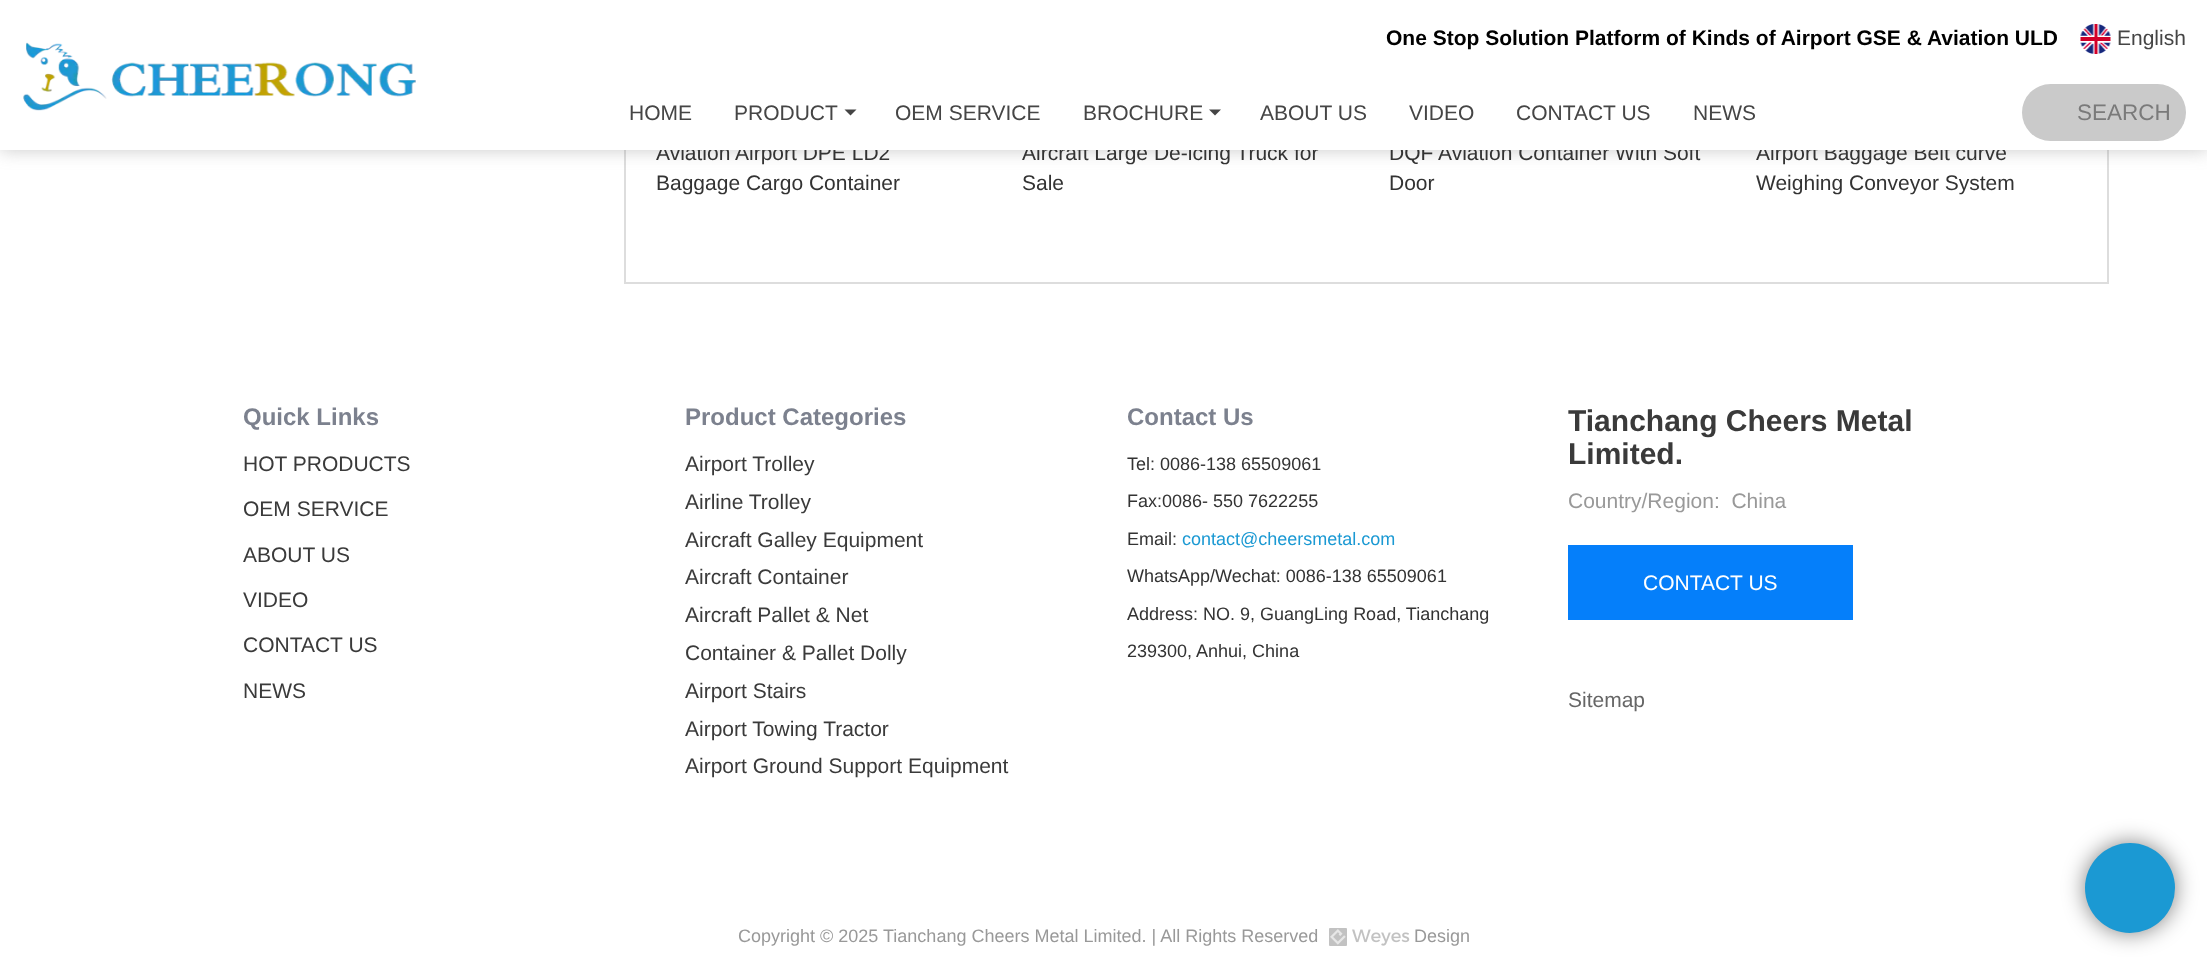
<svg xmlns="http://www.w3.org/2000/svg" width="2207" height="966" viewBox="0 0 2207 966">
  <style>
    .t1 { font: 21px Liberation Sans; fill: #333; }
    .t2 { font: bold 21px Liberation Sans; fill: #000; }
    .t3 { font: 21px Liberation Sans; fill: #454545; }
    .t4 { font: 22.5px Liberation Sans; fill: #7a7a7a; }
    .t5 { font: bold 24px Liberation Sans; fill: #7c818e; }
    .t6 { font: 21px Liberation Sans; fill: #3a3a3a; }
    .t7 { font: 18px Liberation Sans; fill: #333; }
    .t8 { font: 18px Liberation Sans; fill: #1b99d3; }
    .t9 { font: bold 30px Liberation Sans; fill: #3a3a3a; }
    .t10 { font: 21px Liberation Sans; fill: #999; }
    .t11 { font: 21px Liberation Sans; fill: #fff; }
    .t12 { font: 21px Liberation Sans; fill: #666; }
    .t13 { font: 18px Liberation Sans; fill: #999; }
  </style>
  <rect width="100%" height="100%" fill="#fff"/>
  <rect x="625" y="-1" width="1483" height="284" fill="none" stroke="#ddd" stroke-width="2"/>
  <rect x="0" y="0" width="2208" height="150" fill="#7a7a7a66" filter="blur(9px)"/>
  <text x="656" y="160" class="t1">Aviation Airport DPE LD2</text>
  <text x="1022" y="160" class="t1">Aircraft Large De-icing Truck for</text>
  <text x="1389" y="160" class="t1">DQF Aviation Container With Soft</text>
  <text x="1756" y="160" class="t1">Airport Baggage Belt curve</text>
  <rect x="0" y="0" width="2207" height="150" fill="#fff"/>
  <text x="1386" y="45" class="t2">One Stop Solution Platform of Kinds of Airport GSE &amp; Aviation ULD</text>
  <image x="2080" y="24" width="31" height="30" href="images/1.png"/>
  <text x="2117" y="45" class="t3">English</text>
  <image x="23" y="42" width="393" height="69" href="images/2.png"/>
  <text x="629" y="120" class="t3">HOME</text>
  <text x="734" y="120" class="t3">PRODUCT</text>
  <path d="M844.5 109.5H856.5L850.5 115.5Z" fill="#454545"/>
  <text x="895" y="120" class="t3">OEM SERVICE</text>
  <text x="1083" y="120" class="t3">BROCHURE</text>
  <path d="M1209 109.5H1221L1215 115.5Z" fill="#454545"/>
  <text x="1260" y="120" class="t3">ABOUT US</text>
  <text x="1409" y="120" class="t3">VIDEO</text>
  <text x="1516" y="120" class="t3">CONTACT US</text>
  <text x="1693" y="120" class="t3">NEWS</text>
  <rect x="2022" y="84" width="164" height="57" rx="28.5" fill="#cacaca"/>
  <text x="2077" y="120" class="t4">SEARCH</text>
  <text x="656" y="190" class="t1">Baggage Cargo Container</text>
  <text x="1022" y="190" class="t1">Sale</text>
  <text x="1389" y="190" class="t1">Door</text>
  <text x="1756" y="190" class="t1">Weighing Conveyor System</text>
  <text x="243" y="425" class="t5">Quick Links</text>
  <text x="243" y="471" class="t6">HOT PRODUCTS</text>
  <text x="243" y="516" class="t6">OEM SERVICE</text>
  <text x="243" y="562" class="t6">ABOUT US</text>
  <text x="243" y="607" class="t6">VIDEO</text>
  <text x="243" y="652" class="t6">CONTACT US</text>
  <text x="243" y="698" class="t6">NEWS</text>
  <text x="685" y="425" class="t5">Product Categories</text>
  <text x="685" y="471" class="t6">Airport Trolley</text>
  <text x="685" y="509" class="t6">Airline Trolley</text>
  <text x="685" y="547" class="t6">Aircraft Galley Equipment</text>
  <text x="685" y="584" class="t6">Aircraft Container</text>
  <text x="685" y="622" class="t6">Aircraft Pallet &amp; Net</text>
  <text x="685" y="660" class="t6">Container &amp; Pallet Dolly</text>
  <text x="685" y="698" class="t6">Airport Stairs</text>
  <text x="685" y="736" class="t6">Airport Towing Tractor</text>
  <text x="685" y="773" class="t6">Airport Ground Support Equipment</text>
  <text x="1127" y="425" class="t5">Contact Us</text>
  <text x="1127" y="470" class="t7">Tel: 0086-138 65509061</text>
  <text x="1127" y="507" class="t7">Fax:0086- 550 7622255</text>
  <text x="1127" y="545" class="t7">Email:</text>
  <text x="1182" y="545" class="t8">contact@cheersmetal.com</text>
  <text x="1127" y="582" class="t7">WhatsApp/Wechat: 0086-138 65509061</text>
  <text x="1127" y="620" class="t7">Address: NO. 9, GuangLing Road, Tianchang</text>
  <text x="1127" y="657" class="t7">239300, Anhui, China</text>
  <text x="1568" y="431" class="t9">Tianchang Cheers Metal</text>
  <text x="1568" y="464" class="t9">Limited.</text>
  <text x="1568" y="508" class="t10" xml:space="preserve">Country/Region:  China</text>
  <rect x="1568" y="545" width="285" height="75" fill="#057ffa"/>
  <text x="1643" y="590" class="t11">CONTACT US</text>
  <text x="1568" y="707" class="t12">Sitemap</text>
  <text x="738" y="942" class="t13">Copyright © 2025 Tianchang Cheers Metal Limited. | All Rights Reserved</text>
  <image x="1329" y="928" width="81" height="18" href="images/3.png"/>
  <text x="1414" y="942" class="t13">Design</text>
  <rect x="2085" y="843" width="90" height="90" rx="45" fill="#00000080" filter="blur(11px)"/>
  <circle cx="2130" cy="888" r="45" fill="#1b99d3"/>
</svg>
